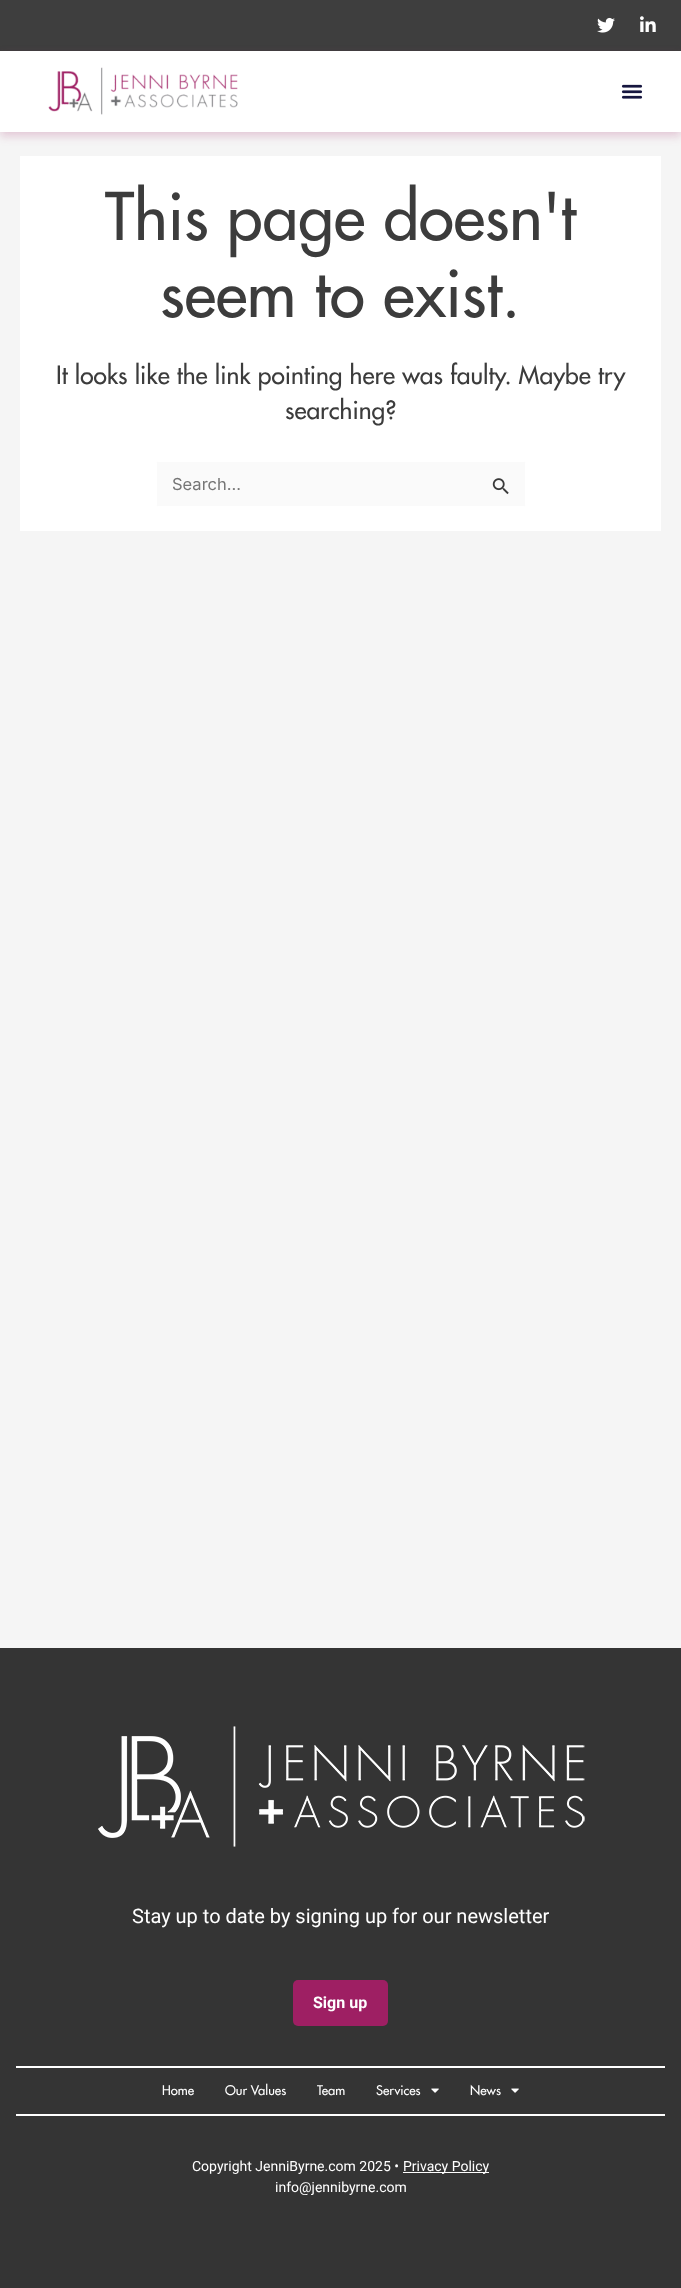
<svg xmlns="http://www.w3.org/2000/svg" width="681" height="2288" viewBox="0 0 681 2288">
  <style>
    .t1 { font: 500 64px Futura; fill: #3c3c3c; }
    .t2 { font: 500 24.6px Futura; fill: #3c3c3c; }
    .t3 { font: 16.5px Inter; fill: #757575; }
    .t4 { font: 20px Roboto; fill: #fff; }
    .t5 { font: bold 16px Roboto; fill: #fff; }
    .t6 { font: 500 13px Futura; fill: #fff; }
    .t7 { font: 14px Roboto; fill: #fff; }
  </style>
  <rect width="100%" height="100%" fill="#f5f5f5"/>
  <rect x="0" y="0" width="681" height="51" fill="#3e3e3e"/>
  <image x="597" y="17" width="18" height="16" href="images/1.png"/>
  <image x="640" y="16" width="16" height="16" href="images/2.png"/>
  <rect x="0" y="55" width="681" height="81" fill="#9e1f6338" filter="blur(5px)"/>
  <rect x="0" y="51" width="681" height="81" fill="#fff"/>
  <image x="48" y="67" width="190" height="48" href="images/3.png"/>
  <image x="621" y="84" width="22" height="15" href="images/4.png"/>
  <rect x="20" y="156" width="641" height="375" fill="#fff"/>
  <text x="105" y="240" class="t1">This page doesn't</text>
  <text x="160" y="317" class="t1">seem to exist.</text>
  <text x="56" y="384" class="t2">It looks like the link pointing here was faulty. Maybe try</text>
  <text x="285" y="419" class="t2">searching?</text>
  <rect x="156.5" y="461.5" width="369" height="45" rx="1.5" fill="#fafafa" stroke="#fff"/>
  <text x="172" y="490" class="t3">Search...</text>
  <image x="492" y="478" width="17" height="17" href="images/5.png"/>
  <rect x="0" y="1648" width="681" height="640" fill="#343434"/>
  <image x="98" y="1726" width="487" height="121" href="images/6.png"/>
  <text x="132" y="1923" class="t4">Stay up to date by signing up for our newsletter</text>
  <rect x="293" y="1980" width="95" height="46" rx="5" fill="#9e1f63"/>
  <text x="313" y="2008" class="t5">Sign up</text>
  <rect x="16" y="2066" width="649" height="2" fill="#fff"/>
  <rect x="16" y="2114" width="649" height="2" fill="#fff"/>
  <text x="162" y="2095" class="t6">Home</text>
  <text x="225" y="2095" class="t6">Our Values</text>
  <text x="317" y="2095" class="t6">Team</text>
  <text x="376" y="2095" class="t6">Services</text>
  <image x="431" y="2088" width="8" height="5" href="images/7.png"/>
  <text x="470" y="2095" class="t6">News</text>
  <image x="511" y="2088" width="8" height="5" href="images/7.png"/>
  <text x="192" y="2171" class="t7">Copyright JenniByrne.com 2025 •</text>
  <rect x="403" y="2172" width="86" height="1" fill="#fff"/>
  <text x="403" y="2171" class="t7">Privacy Policy</text>
  <text x="275" y="2192" class="t7">info@jennibyrne.com</text>
</svg>
